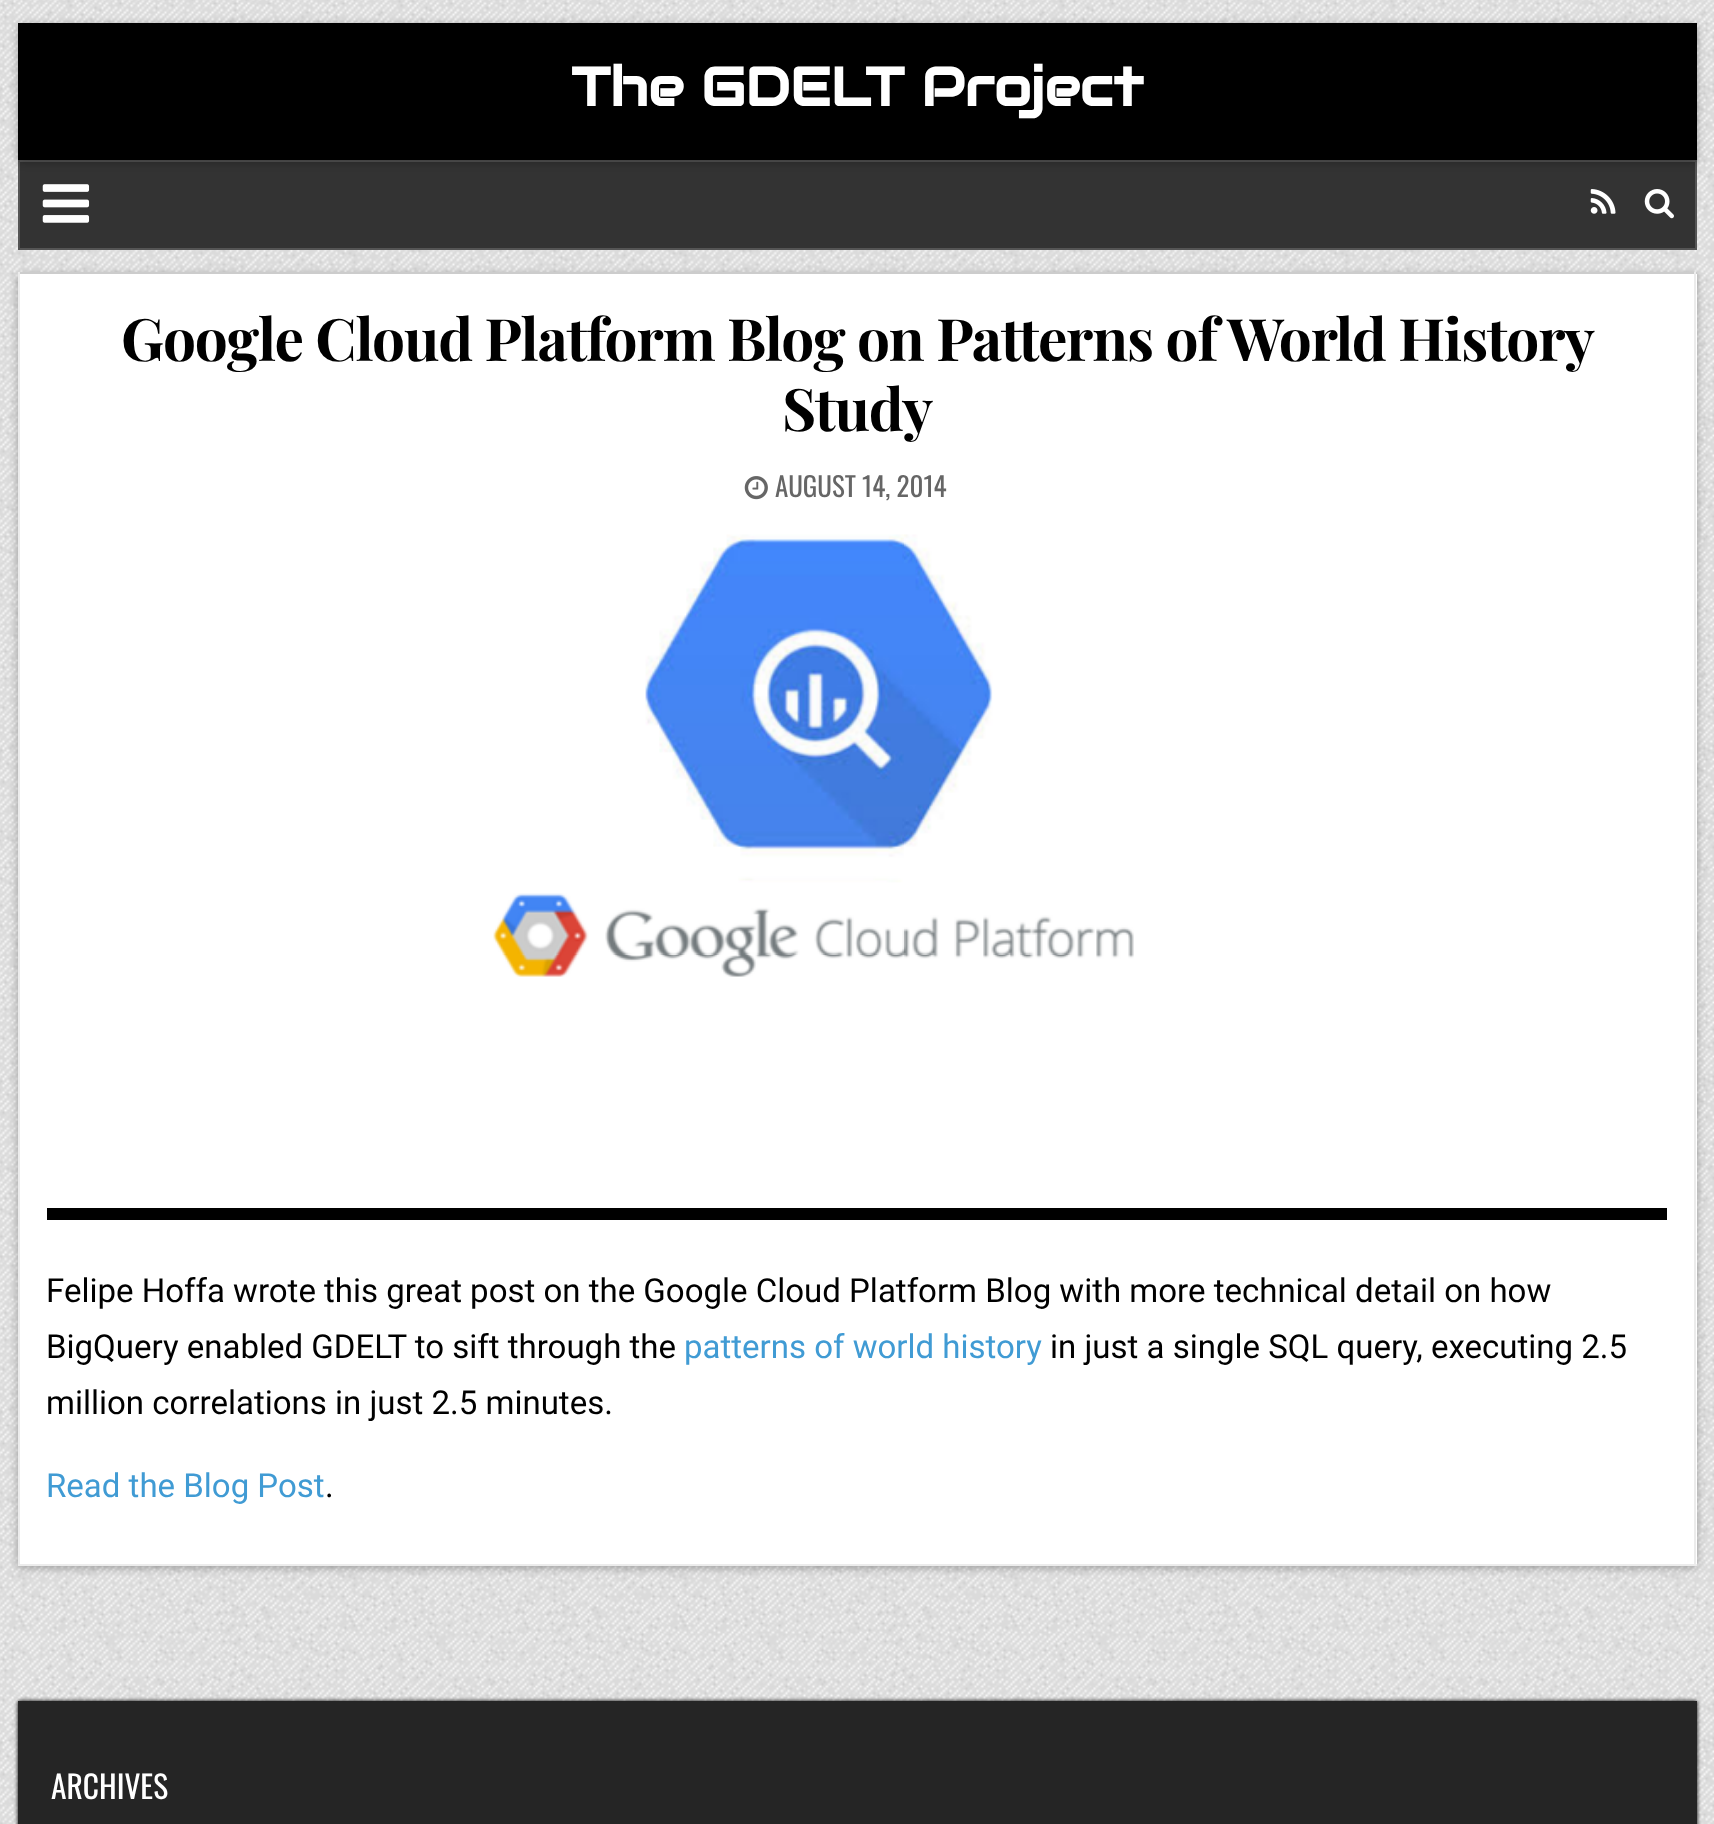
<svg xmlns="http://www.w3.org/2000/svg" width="1714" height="1824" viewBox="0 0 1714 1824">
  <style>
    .t1 { font: bold 54px Audiowide; fill: #fff; }
    .t2 { font: bold 58.5px Playfair Display; letter-spacing: -1.12px; fill: #000; }
    .t3 { font: 27px Oswald; fill: #666; }
    .t4 { font: 33px Roboto; fill: #000; }
    .t5 { font: 33px Roboto; fill: #409bd4; }
    .t6 { font: 31.5px Oswald; fill: #fff; }
  </style>
  <rect width="100%" height="100%" fill="#fff"/>
  <image x="0" y="0" width="1714" height="1824" href="images/1.png"/>
  <rect x="19" y="161" width="1677" height="88" fill="#333" stroke="#555" stroke-width="2"/>
  <rect x="18" y="25" width="1679" height="137" fill="#0000004d" filter="blur(4.5px)"/>
  <rect x="18" y="23" width="1679" height="137" fill="#000"/>
  <text x="571" y="106" class="t1">The GDELT Project</text>
  <image x="42" y="184" width="48" height="39" href="images/2.png"/>
  <image x="1590" y="189" width="26" height="25" href="images/3.png"/>
  <image x="1644" y="189" width="30" height="30" href="images/4.png"/>
  <rect x="18" y="275" width="1679" height="1293" fill="#0000004d" filter="blur(4.5px)"/>
  <rect x="20" y="274" width="1677" height="1290" fill="#fff"/>
  <rect x="18" y="272" width="1679" height="2" fill="#ccc"/>
  <rect x="1694" y="272" width="2" height="1294" fill="#ececec"/>
  <rect x="18" y="1564" width="1679" height="2" fill="#ececec"/>
  <rect x="18" y="272" width="2" height="1294" fill="#ececec"/>
  <text x="121" y="361" class="t2">Google Cloud Platform Blog on Patterns of World History</text>
  <text x="782" y="431" class="t2">Study</text>
  <image x="744" y="476" width="24" height="24" href="images/5.png"/>
  <text x="775" y="497" class="t3">AUGUST 14, 2014</text>
  <image x="493" y="534" width="641" height="443" href="images/6.png"/>
  <rect x="47" y="1208" width="1620" height="12" fill="#000"/>
  <text x="46" y="1302" class="t4">Felipe Hoffa wrote this great post on the Google Cloud Platform Blog with more technical detail on how</text>
  <text x="46" y="1358" class="t4">BigQuery enabled GDELT to sift through the</text>
  <text x="684" y="1358" class="t5">patterns of world history</text>
  <text x="1050" y="1358" class="t4">in just a single SQL query, executing 2.5</text>
  <text x="46" y="1414" class="t4">million correlations in just 2.5 minutes.</text>
  <text x="46" y="1497" class="t5">Read the Blog Post</text>
  <text x="325" y="1497" class="t4">.</text>
  <rect x="18" y="1701" width="1679" height="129" fill="#000" filter="blur(2px)"/>
  <rect x="18" y="1701" width="1679" height="123" fill="#252525"/>
  <text x="51" y="1799" class="t6">ARCHIVES</text>
</svg>
